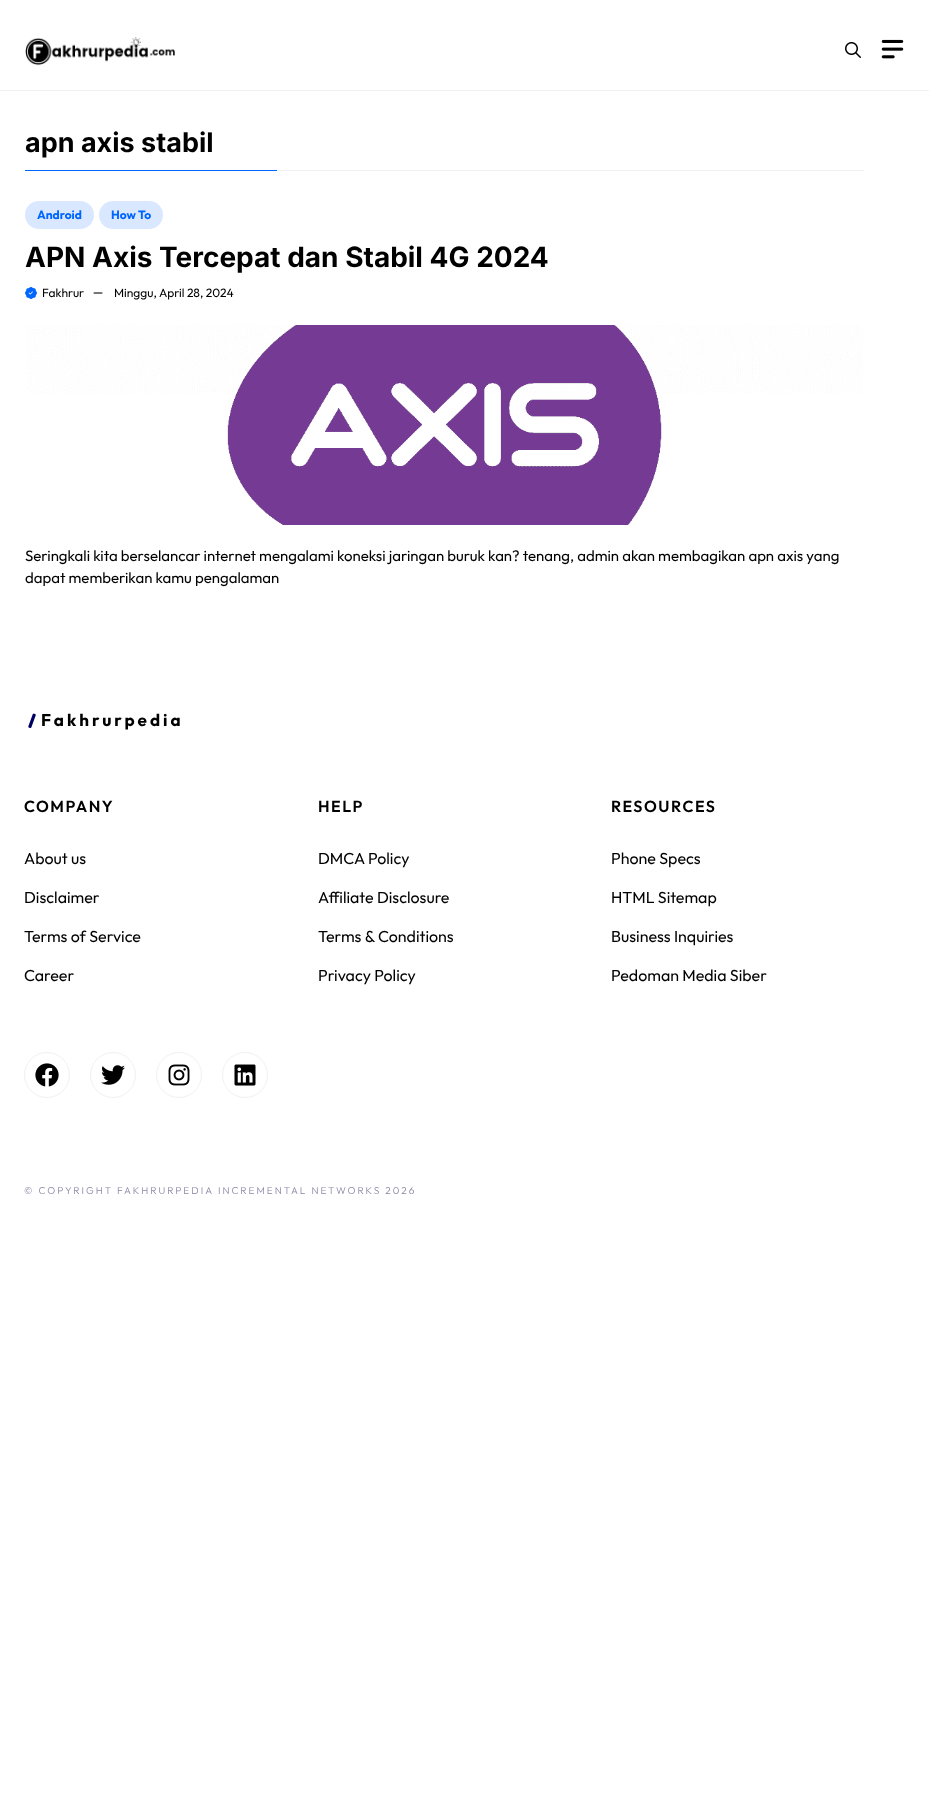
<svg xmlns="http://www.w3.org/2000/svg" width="929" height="1808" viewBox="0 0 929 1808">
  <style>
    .t1 { font: bold 27px Inter; fill: #000; }
    .t2 { font: bold 12px Outfit; fill: #0166ff; }
    .t3 { font: bold 28px Inter; fill: #000; }
    .t4 { font: 12px Outfit; fill: #000; }
    .t5 { font: 15px Outfit; fill: #000; }
    .t6 { font: bold 17px Outfit; letter-spacing: 3px; fill: #000; }
    .t7 { font: 600 16px Outfit; letter-spacing: 1.5px; fill: #000; }
    .t8 { font: 16px Outfit; fill: #000; }
    .t9 { font: 300 10px Outfit; letter-spacing: 2px; fill: #8c87a6; }
  </style>
  <rect width="100%" height="100%" fill="#fff"/>
  <rect x="0" y="90" width="929" height="1" fill="#f1f1f1"/>
  <image x="25" y="37" width="150" height="29" href="images/1.png"/>
  <image x="845" y="42" width="16" height="16" href="images/2.png"/>
  <image x="881" y="39" width="23" height="20" href="images/3.png"/>
  <rect x="277" y="170" width="587" height="1" fill="#f1f1f1"/>
  <text x="25" y="152" class="t1">apn axis stabil</text>
  <rect x="25" y="170" width="252" height="1" fill="#0166ff"/>
  <text x="37" y="219" class="t2">Android</text>
  <rect x="25" y="201" width="69" height="28" rx="14" fill="#0166ff26"/>
  <text x="111" y="219" class="t2">How To</text>
  <rect x="99" y="201" width="64" height="28" rx="14" fill="#0166ff26"/>
  <text x="25" y="267" class="t3">APN Axis Tercepat dan Stabil 4G 2024</text>
  <image x="25" y="287" width="12" height="12" href="images/4.png"/>
  <text x="42" y="297" class="t4">Fakhrur</text>
  <image x="93" y="292" width="10" height="2" href="images/5.png"/>
  <text x="114" y="297" class="t4">Minggu, April 28, 2024</text>
  <image x="27" y="325" width="836" height="200" href="images/6.png"/>
  <text x="25" y="561" class="t5">Seringkali kita berselancar internet mengalami koneksi jaringan buruk kan? tenang, admin akan membagikan apn axis yang</text>
  <text x="25" y="583" class="t5">dapat memberikan kamu pengalaman</text>
  <image x="28" y="713" width="8" height="15" href="images/7.png"/>
  <text x="41" y="726" class="t6">Fakhrurpedia</text>
  <text x="24" y="812" class="t7">COMPANY</text>
  <text x="24" y="864" class="t8">About us</text>
  <text x="24" y="903" class="t8">Disclaimer</text>
  <text x="24" y="942" class="t8">Terms of Service</text>
  <text x="24" y="981" class="t8">Career</text>
  <text x="318" y="812" class="t7">HELP</text>
  <text x="318" y="864" class="t8">DMCA Policy</text>
  <text x="318" y="903" class="t8">Affiliate Disclosure</text>
  <text x="318" y="942" class="t8">Terms &amp; Conditions</text>
  <text x="318" y="981" class="t8">Privacy Policy</text>
  <text x="611" y="812" class="t7">RESOURCES</text>
  <text x="611" y="864" class="t8">Phone Specs</text>
  <text x="611" y="903" class="t8">HTML Sitemap</text>
  <text x="611" y="942" class="t8">Business Inquiries</text>
  <text x="611" y="981" class="t8">Pedoman Media Siber</text>
  <circle cx="47" cy="1075" r="22.5" fill="none" stroke="#f1f1f1"/>
  <image x="35" y="1063" width="24" height="24" href="images/8.png"/>
  <circle cx="113" cy="1075" r="22.5" fill="none" stroke="#f1f1f1"/>
  <image x="101" y="1065" width="24" height="20" href="images/9.png"/>
  <circle cx="179" cy="1075" r="22.5" fill="none" stroke="#f1f1f1"/>
  <image x="168" y="1064" width="22" height="22" href="images/10.png"/>
  <circle cx="245" cy="1075" r="22.5" fill="none" stroke="#f1f1f1"/>
  <image x="234" y="1064" width="22" height="22" href="images/11.png"/>
  <text x="24" y="1194" class="t9">© COPYRIGHT FAKHRURPEDIA INCREMENTAL NETWORKS 2026</text>
</svg>
